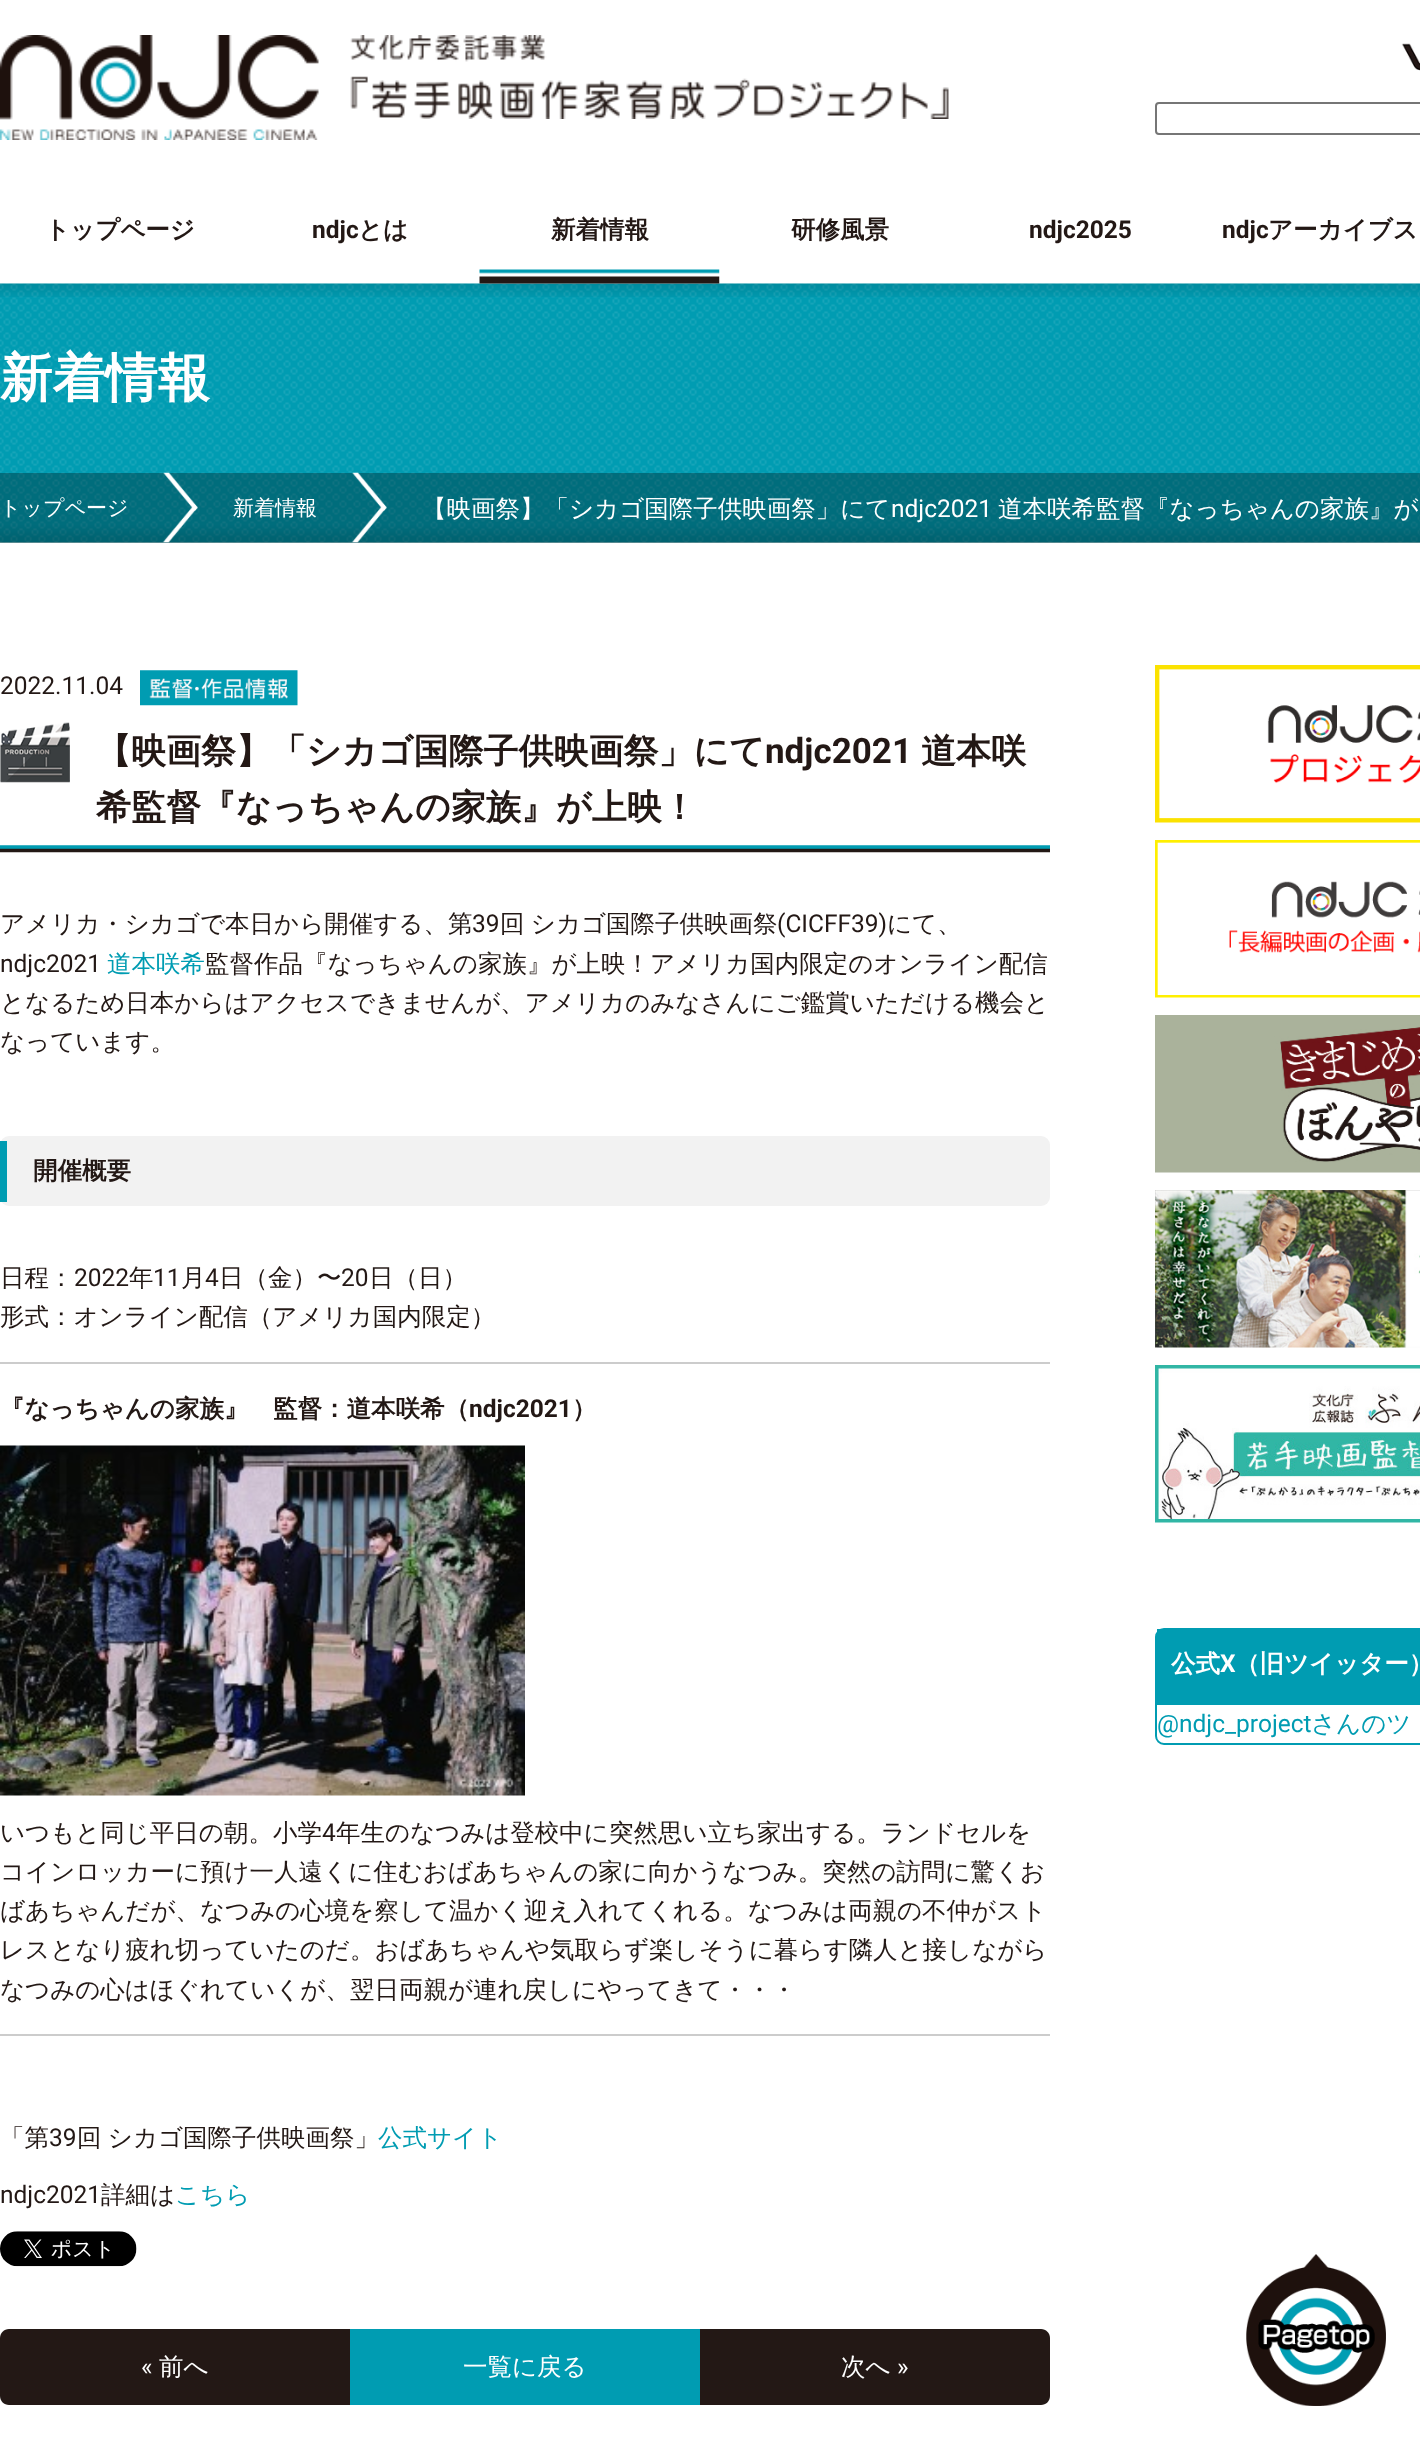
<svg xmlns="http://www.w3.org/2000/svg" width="1420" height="2440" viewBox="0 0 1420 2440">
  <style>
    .t1 { font: bold 24.5px WenQuanYi Zen Hei; fill: #231815; }
    .t2 { font: bold 24.5px Roboto; fill: #231815; }
    .t3 { font: bold 52.5px WenQuanYi Zen Hei; fill: #fff; }
    .t4 { font: 500 21px WenQuanYi Zen Hei; fill: #fff; }
    .t5 { font: 500 24.5px WenQuanYi Zen Hei; fill: #fff; }
    .t6 { font: 24.5px Roboto; fill: #fff; }
    .t7 { font: 24.5px Roboto; fill: #231815; }
    .t8 { font: bold 35px WenQuanYi Zen Hei; fill: #231815; }
    .t9 { font: bold 35px Roboto; fill: #231815; }
    .t10 { font: 500 24.5px WenQuanYi Zen Hei; fill: #231815; }
    .t11 { font: 500 24.5px WenQuanYi Zen Hei; fill: #009cb2; }
    .t12 { font: bold 24.5px WenQuanYi Zen Hei; fill: #fff; }
    .t13 { font: bold 24.5px Roboto; fill: #fff; }
    .t14 { font: 24.5px Roboto; fill: #009cb2; }
  </style>
  <rect width="100%" height="100%" fill="#fff"/>
  <image x="0" y="283" width="1420" height="260" href="images/6.png"/>
  <image x="0" y="283" width="1420" height="14" href="images/1.png"/>
  <image x="0" y="35" width="319" height="105" href="images/2.png"/>
  <image x="350" y="35" width="599" height="84" href="images/3.png"/>
  <image x="1401" y="43" width="19" height="28" href="images/4.png"/>
  <rect x="1156" y="103" width="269" height="31" rx="3" fill="none" stroke="#767676" stroke-width="2"/>
  <text x="45" y="238" class="t1">トップページ</text>
  <text x="312" y="238" class="t2">ndjc</text>
  <text x="358" y="238" class="t1">とは</text>
  <image x="479" y="269" width="241" height="15" href="images/5.png"/>
  <text x="551" y="238" class="t1">新着情報</text>
  <text x="791" y="238" class="t1">研修風景</text>
  <text x="1029" y="238" class="t2">ndjc2025</text>
  <text x="1222" y="238" class="t2">ndjc</text>
  <text x="1268" y="238" class="t1">アーカイブス</text>
  <text x="0" y="396" class="t3">新着情報</text>
  <rect x="0" y="473" width="1420" height="70" fill="#0000004d"/>
  <image x="162" y="472" width="36" height="71" href="images/7.png"/>
  <text x="0" y="515" class="t4">トップページ</text>
  <image x="351" y="472" width="36" height="71" href="images/8.png"/>
  <text x="233" y="515" class="t4">新着情報</text>
  <text x="422" y="517" class="t5">【映画祭】「シカゴ国際子供映画祭」にて</text>
  <text x="891" y="517" class="t6">ndjc2021</text>
  <text x="998" y="517" class="t5">道本咲希監督『なっちゃんの家族』が</text>
  <text x="0" y="694" class="t7">2022.11.04</text>
  <image x="140" y="670" width="158" height="36" href="images/9.png"/>
  <image x="0" y="722" width="1050" height="131" href="images/10.png"/>
  <text x="96" y="763" class="t8">【映画祭】「シカゴ国際子供映画祭」にて</text>
  <text x="765" y="763" class="t9">ndjc2021</text>
  <text x="921" y="763" class="t8">道本咲</text>
  <text x="96" y="819" class="t8">希監督『なっちゃんの家族』が上映！</text>
  <text x="0" y="932" class="t10">アメリカ・シカゴで本日から開催する、第</text>
  <text x="472" y="932" class="t7">39</text>
  <text x="500" y="932" word-spacing="-1" class="t10">回 シカゴ国際子供映画祭</text>
  <text x="777" y="932" class="t7">(CICFF39)</text>
  <text x="887" y="932" class="t10">にて、</text>
  <text x="0" y="972" class="t7">ndjc2021</text>
  <text x="107" y="972" class="t11">道本咲希</text>
  <text x="205" y="972" class="t10">監督作品『なっちゃんの家族』が上映！アメリカ国内限定のオンライン配信</text>
  <text x="0" y="1011" class="t10">となるため日本からはアクセスできませんが、アメリカのみなさんにご鑑賞いただける機会と</text>
  <text x="0" y="1050" class="t10">なっています。</text>
  <rect x="0" y="1136" width="1050" height="70" rx="9" fill="#f2f2f2"/>
  <rect x="0" y="1141" width="7" height="61" fill="#009cb2"/>
  <text x="33" y="1179" class="t1">開催概要</text>
  <text x="0" y="1286" class="t10">日程：</text>
  <text x="74" y="1286" class="t7">2022</text>
  <text x="129" y="1286" class="t10">年</text>
  <text x="153" y="1286" class="t7">11</text>
  <text x="181" y="1286" class="t10">月</text>
  <text x="205" y="1286" class="t7">4</text>
  <text x="219" y="1286" class="t10">日（金）〜</text>
  <text x="341" y="1286" class="t7">20</text>
  <text x="369" y="1286" class="t10">日（日）</text>
  <text x="0" y="1325" class="t10">形式：オンライン配信（アメリカ国内限定）</text>
  <rect x="0" y="1362" width="1050" height="2" fill="#ccc"/>
  <text x="0" y="1417" class="t1">『なっちゃんの家族』　監督：道本咲希（</text>
  <text x="469" y="1417" class="t2">ndjc2021</text>
  <text x="572" y="1417" class="t1">）</text>
  <image x="0" y="1445" width="525" height="351" href="images/11.png"/>
  <text x="0" y="1841" class="t10">いつもと同じ平日の朝。小学</text>
  <text x="322" y="1841" class="t7">4</text>
  <text x="336" y="1841" class="t10">年生のなつみは登校中に突然思い立ち家出する。ランドセルを</text>
  <text x="0" y="1880" class="t10">コインロッカーに預け一人遠くに住むおばあちゃんの家に向かうなつみ。突然の訪問に驚くお</text>
  <text x="0" y="1919" class="t10">ばあちゃんだが、なつみの心境を察して温かく迎え入れてくれる。なつみは両親の不仲がスト</text>
  <text x="0" y="1958" class="t10">レスとなり疲れ切っていたのだ。おばあちゃんや気取らず楽しそうに暮らす隣人と接しながら</text>
  <text x="0" y="1998" class="t10">なつみの心はほぐれていくが、翌日両親が連れ戻しにやってきて・・・</text>
  <rect x="0" y="2034" width="1050" height="2" fill="#ccc"/>
  <text x="0" y="2146" class="t10">「第</text>
  <text x="49" y="2146" class="t7">39</text>
  <text x="77" y="2146" word-spacing="-1" class="t10">回 シカゴ国際子供映画祭」</text>
  <text x="378" y="2146" class="t11">公式サイト</text>
  <text x="0" y="2203" class="t7">ndjc2021</text>
  <text x="101" y="2203" class="t10">詳細は</text>
  <text x="175" y="2203" class="t11">こちら</text>
  <image x="0" y="2231" width="137" height="36" href="images/12.png"/>
  <path d="M9 2329H350V2405H9C4 2405 0 2401 0 2396V2338C0 2333 4 2329 9 2329Z" fill="#231815"/>
  <text x="141" y="2375" class="t6">«</text>
  <text x="159" y="2375" class="t5">前へ</text>
  <rect x="350" y="2329" width="350" height="76" fill="#009cb2"/>
  <text x="463" y="2375" class="t5">一覧に戻る</text>
  <path d="M700 2329H1041C1046 2329 1050 2333 1050 2338V2396C1050 2401 1046 2405 1041 2405H700Z" fill="#231815"/>
  <text x="841" y="2375" class="t5">次へ</text>
  <text x="897" y="2375" class="t6">»</text>
  <image x="1155" y="665" width="265" height="158" href="images/13.png"/>
  <image x="1155" y="840" width="265" height="158" href="images/14.png"/>
  <image x="1155" y="1015" width="265" height="158" href="images/15.png"/>
  <image x="1155" y="1190" width="265" height="158" href="images/16.png"/>
  <image x="1155" y="1365" width="265" height="158" href="images/17.png"/>
  <rect x="1156" y="1629" width="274" height="115" rx="8" fill="none" stroke="#009cb2" stroke-width="2"/>
  <rect x="1157" y="1629" width="263" height="76" fill="#009cb2"/>
  <text x="1171" y="1672" class="t12">公式</text>
  <text x="1220" y="1672" class="t13">X</text>
  <text x="1235" y="1672" class="t12">（旧ツイッター）</text>
  <text x="1157" y="1732" class="t14">@ndjc_project</text>
  <text x="1311" y="1732" class="t11">さんのツ</text>
  <image x="1246" y="2254" width="140" height="152" href="images/18.png"/>
</svg>
